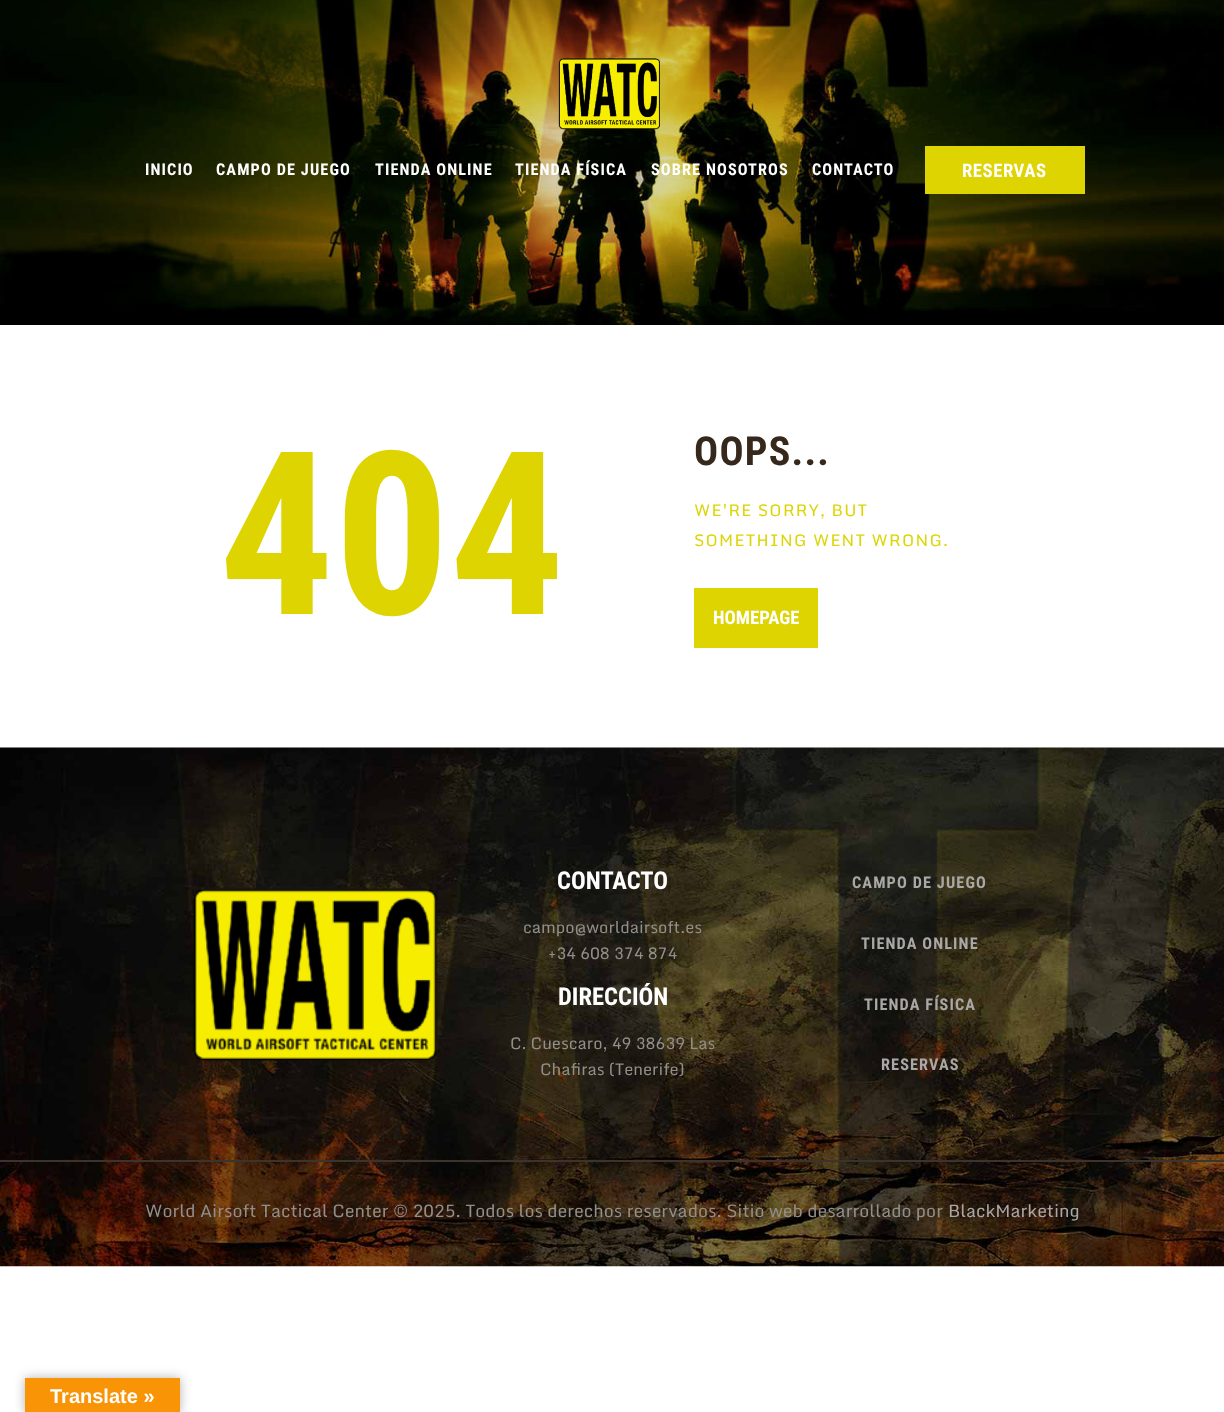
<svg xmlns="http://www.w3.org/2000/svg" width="1224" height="1412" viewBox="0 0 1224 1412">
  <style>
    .t1 { font: bold 16.25px Roboto Condensed; letter-spacing: 1.1px; fill: #fff; }
    .t2 { font: bold 18.75px Roboto Condensed; letter-spacing: 0.5px; fill: #fff; }
    .t3 { font: bold 228px Roboto Condensed; fill: #ddd402; }
    .t4 { font: bold 40px Roboto Condensed; letter-spacing: 1.25px; fill: #37281c; }
    .t5 { font: 16.25px Monda; letter-spacing: 1.25px; fill: #ddd402; }
    .t6 { font: bold 18.75px Roboto Condensed; fill: #fff; }
    .t7 { font: bold 24.5px Roboto Condensed; fill: #fff; }
    .t8 { font: 16.25px Monda; fill: #928e8a; }
    .t9 { font: bold 16.25px Roboto Condensed; letter-spacing: 1.1px; fill: #aaa8a7; }
    .t10 { font: 17.5px Monda; fill: #928e8a; }
    .t11 { font: 17.5px Monda; fill: #aaa8a7; }
    .t12 { font: bold 20px Liberation Sans; fill: #fff; }
  </style>
  <rect width="100%" height="100%" fill="#fff"/>
  <image x="0" y="0" width="1224" height="325" href="images/1.png"/>
  <image x="558" y="58" width="102" height="72" href="images/2.png"/>
  <text x="145" y="175" class="t1">INICIO</text>
  <text x="216" y="175" class="t1">CAMPO DE JUEGO</text>
  <text x="375" y="175" class="t1">TIENDA ONLINE</text>
  <text x="515" y="175" class="t1">TIENDA FÍSICA</text>
  <text x="651" y="175" class="t1">SOBRE NOSOTROS</text>
  <text x="812" y="175" class="t1">CONTACTO</text>
  <rect x="925" y="146" width="160" height="48" fill="#ddd402"/>
  <text x="962" y="177" class="t2">RESERVAS</text>
  <text x="219" y="614" class="t3">404</text>
  <text x="694" y="465" class="t4">OOPS...</text>
  <text x="694" y="516" class="t5">WE'RE SORRY, BUT</text>
  <text x="694" y="546" class="t5">SOMETHING WENT WRONG.</text>
  <rect x="694" y="588" width="124" height="60" fill="#ddd402"/>
  <text x="713" y="624" class="t6">HOMEPAGE</text>
  <image x="0" y="747" width="1224" height="520" href="images/3.png"/>
  <image x="192" y="887" width="246" height="175" href="images/4.png"/>
  <text x="557" y="889" class="t7">CONTACTO</text>
  <text x="523" y="933" class="t8">campo@worldairsoft.es</text>
  <text x="548" y="959" class="t8">+34 608 374 874</text>
  <text x="558" y="1005" class="t7">DIRECCIÓN</text>
  <text x="510" y="1049" class="t8">C. Cuescaro, 49 38639 Las</text>
  <text x="540" y="1075" class="t8">Chafiras (Tenerife)</text>
  <text x="852" y="888" class="t9">CAMPO DE JUEGO</text>
  <text x="861" y="949" class="t9">TIENDA ONLINE</text>
  <text x="864" y="1010" class="t9">TIENDA FÍSICA</text>
  <text x="881" y="1070" class="t9">RESERVAS</text>
  <rect x="0" y="1160" width="1224" height="2" fill="#3b332c"/>
  <text x="145" y="1217" class="t10">World Airsoft Tactical Center © 2025. Todos los derechos reservados. Sitio web desarrollado por</text>
  <text x="948" y="1217" class="t11">BlackMarketing</text>
  <rect x="25" y="1378" width="155" height="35" fill="#0000004d" filter="blur(5.5px)"/>
  <rect x="25" y="1378" width="155" height="34" fill="#f89406"/>
  <text x="50" y="1403" class="t12">Translate »</text>
</svg>
